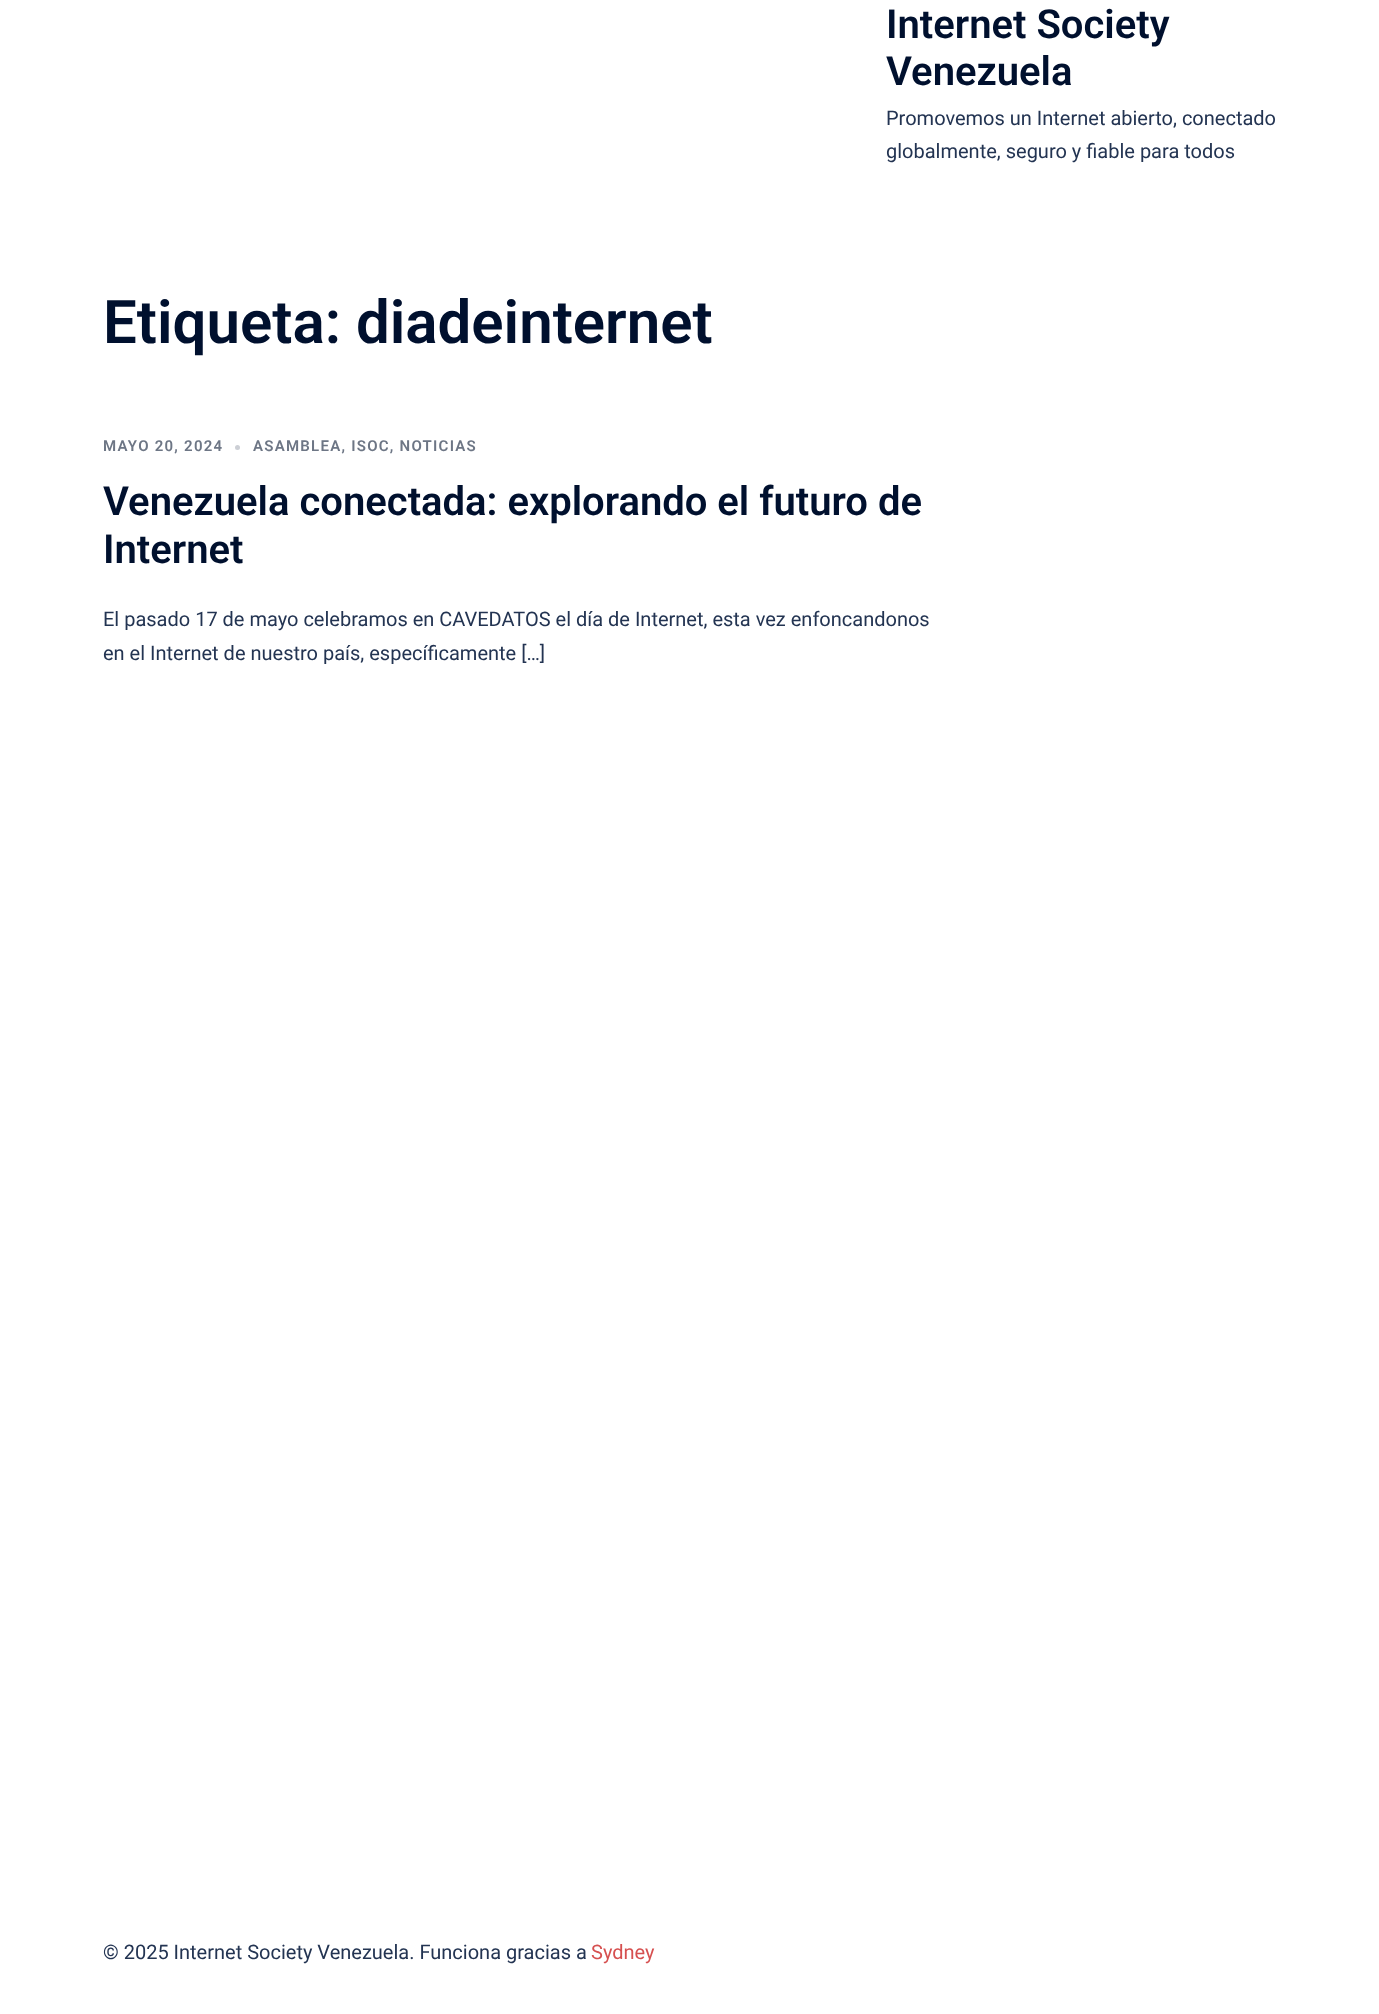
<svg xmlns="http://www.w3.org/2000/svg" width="1379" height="2014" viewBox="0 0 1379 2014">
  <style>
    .t1 { font: 600 40px Roboto; fill: #00102e; }
    .t2 { font: 20px Roboto; fill: #233452; }
    .t3 { font: 600 60px Roboto; fill: #00102e; }
    .t4 { font: 600 15px Roboto; letter-spacing: 1.25px; fill: #6d7685; }
    .t5 { font: 20px Roboto; fill: #d65050; }
  </style>
  <rect width="100%" height="100%" fill="#fff"/>
  <text x="886" y="38" class="t1">Internet Society</text>
  <text x="886" y="85" class="t1">Venezuela</text>
  <text x="886" y="125" class="t2">Promovemos un Internet abierto, conectado</text>
  <text x="886" y="158" class="t2">globalmente, seguro y fiable para todos</text>
  <text x="103" y="343" class="t3">Etiqueta: diadeinternet</text>
  <text x="103" y="451" class="t4">MAYO 20, 2024</text>
  <circle cx="237.5" cy="447.5" r="2.5" fill="#cccfd5"/>
  <text x="253" y="451" class="t4">ASAMBLEA, ISOC, NOTICIAS</text>
  <text x="103" y="515" class="t1">Venezuela conectada: explorando el futuro de</text>
  <text x="103" y="563" class="t1">Internet</text>
  <text x="103" y="626" class="t2">El pasado 17 de mayo celebramos en CAVEDATOS el día de Internet, esta vez enfoncandonos</text>
  <text x="103" y="660" class="t2">en el Internet de nuestro país, específicamente […]</text>
  <text x="103" y="1959" class="t2">© 2025 Internet Society Venezuela. Funciona gracias a</text>
  <text x="591" y="1959" class="t5">Sydney</text>
</svg>
